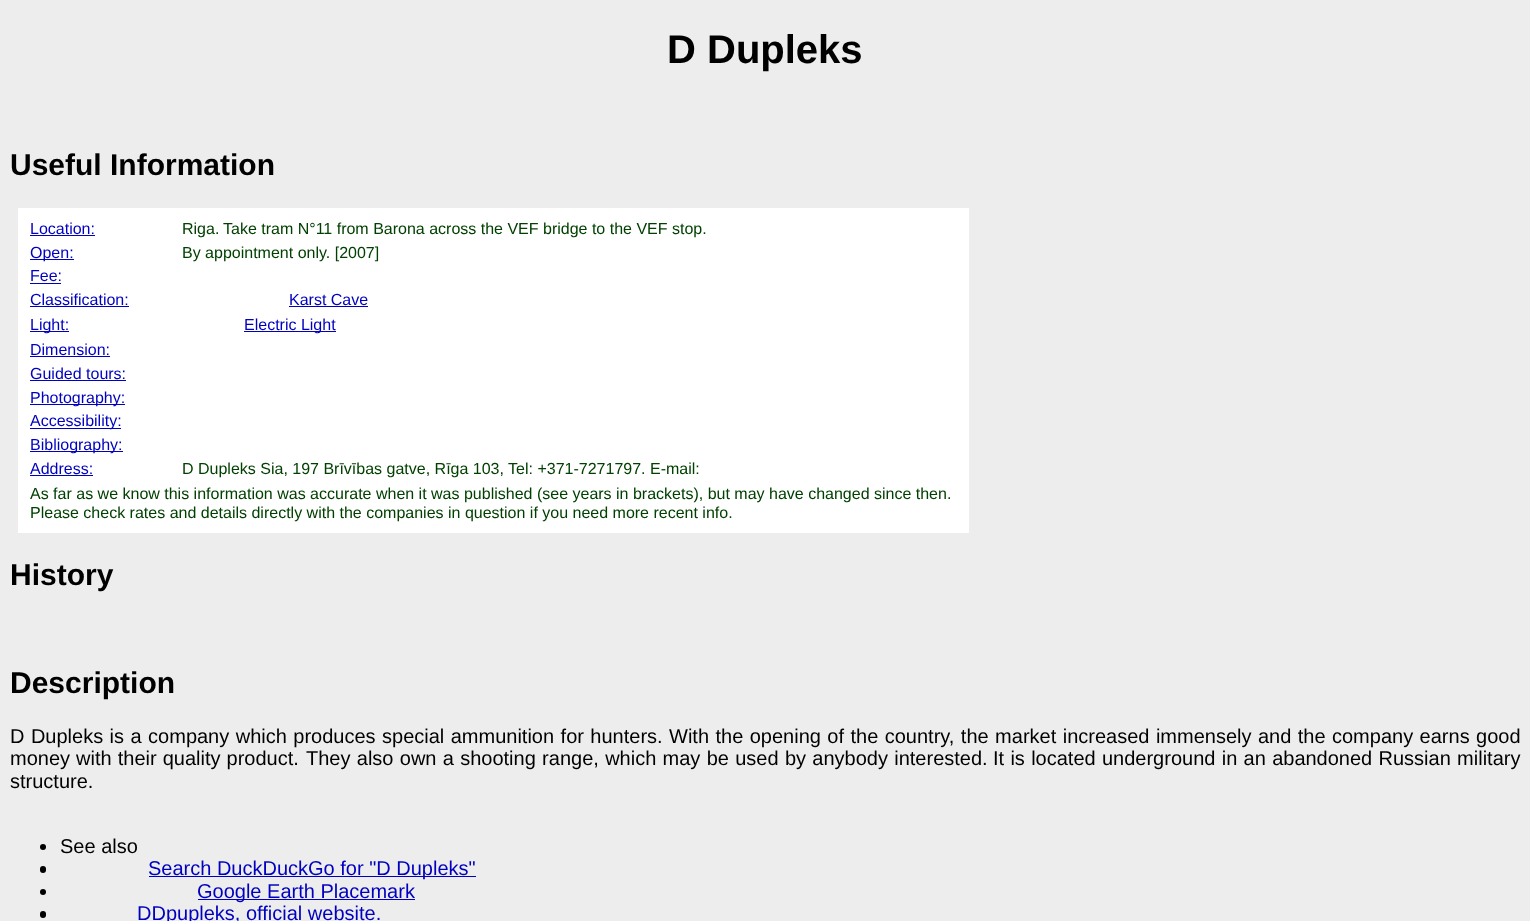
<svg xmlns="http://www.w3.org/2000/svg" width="1530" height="921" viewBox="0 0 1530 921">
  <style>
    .t1 { font: bold 40px Liberation Sans; fill: #000; }
    .t2 { font: bold 30px Liberation Sans; fill: #000; }
    .t3 { font: 16px Liberation Sans; fill: #0000c0; }
    .t4 { font: 16px Liberation Sans; fill: #004000; }
    .t5 { font: 20px Liberation Sans; fill: #000; }
    .t6 { font: 20px Liberation Sans; fill: #0000c0; }
  </style>
  <rect width="100%" height="100%" fill="#ededed"/>
  <text x="667" y="63" class="t1">D Dupleks</text>
  <text x="10" y="175" class="t2">Useful Information</text>
  <rect x="18" y="208" width="951" height="325" fill="#fff"/>
  <text x="30" y="234" class="t3">Location:</text>
  <rect x="30" y="235" width="65" height="1" fill="#0000c0"/>
  <text x="182" y="234" class="t4">Riga.</text>
  <text x="223" y="234" class="t4">Take tram N°11 from Barona across the VEF bridge to the VEF stop.</text>
  <rect x="30" y="259" width="44" height="1" fill="#0000c0"/>
  <text x="30" y="258" class="t3">Open:</text>
  <text x="182" y="258" class="t4">By appointment only. [2007]</text>
  <text x="30" y="281" class="t3">Fee:</text>
  <rect x="30" y="283" width="31" height="1" fill="#0000c0"/>
  <text x="30" y="305" class="t3">Classification:</text>
  <rect x="30" y="306" width="99" height="1" fill="#0000c0"/>
  <text x="289" y="305" class="t3">Karst Cave</text>
  <rect x="289" y="306" width="79" height="1" fill="#0000c0"/>
  <rect x="30" y="331" width="39" height="1" fill="#0000c0"/>
  <text x="30" y="330" class="t3">Light:</text>
  <rect x="244" y="331" width="92" height="1" fill="#0000c0"/>
  <text x="244" y="330" class="t3">Electric Light</text>
  <text x="30" y="355" class="t3">Dimension:</text>
  <rect x="30" y="356" width="80" height="1" fill="#0000c0"/>
  <text x="30" y="379" class="t3">Guided tours:</text>
  <rect x="30" y="380" width="96" height="1" fill="#0000c0"/>
  <rect x="30" y="404" width="95" height="1" fill="#0000c0"/>
  <text x="30" y="403" class="t3">Photography:</text>
  <rect x="30" y="428" width="91" height="1" fill="#0000c0"/>
  <text x="30" y="426" class="t3">Accessibility:</text>
  <rect x="30" y="451" width="93" height="1" fill="#0000c0"/>
  <text x="30" y="450" class="t3">Bibliography:</text>
  <text x="30" y="474" class="t3">Address:</text>
  <rect x="30" y="475" width="63" height="1" fill="#0000c0"/>
  <text x="182" y="474" class="t4">D Dupleks Sia, 197 Brīvības gatve, Rīga 103, Tel: +371-7271797. E-mail:</text>
  <text x="30" y="499" class="t4">As far as we know this information was accurate when it was published (see years in brackets), but may have changed since then.</text>
  <text x="30" y="518" class="t4">Please check rates and details directly with the companies in question if you need more recent info.</text>
  <text x="10" y="585" class="t2">History</text>
  <text x="10" y="693" class="t2">Description</text>
  <text x="10" y="743" word-spacing="0.9" class="t5">D Dupleks is a company which produces special ammunition for hunters.</text>
  <text x="669" y="743" word-spacing="0.9" class="t5">With the opening of the country, the market increased immensely and the company earns good</text>
  <text x="10" y="765" word-spacing="0.5" class="t5">money with their quality product.</text>
  <text x="306" y="765" word-spacing="0.75" class="t5">They also own a shooting range, which may be used by anybody interested.</text>
  <text x="993" y="765" word-spacing="0.75" class="t5">It is located underground in an abandoned Russian military</text>
  <text x="10" y="788" class="t5">structure.</text>
  <circle cx="43" cy="847" r="3" fill="#000"/>
  <text x="60" y="853" class="t5">See also</text>
  <rect x="40" y="866" width="6" height="7" rx="3" fill="#000"/>
  <rect x="149" y="876" width="327" height="1" fill="#0000c0"/>
  <text x="148" y="875" class="t6">Search DuckDuckGo for "D Dupleks"</text>
  <circle cx="43" cy="892" r="3" fill="#000"/>
  <rect x="198" y="899" width="217" height="1" fill="#0000c0"/>
  <text x="197" y="898" class="t6">Google Earth Placemark</text>
  <rect x="40" y="911" width="6" height="7" rx="3" fill="#000"/>
  <text x="137" y="920" class="t6">DDpupleks, official website.</text>
</svg>
